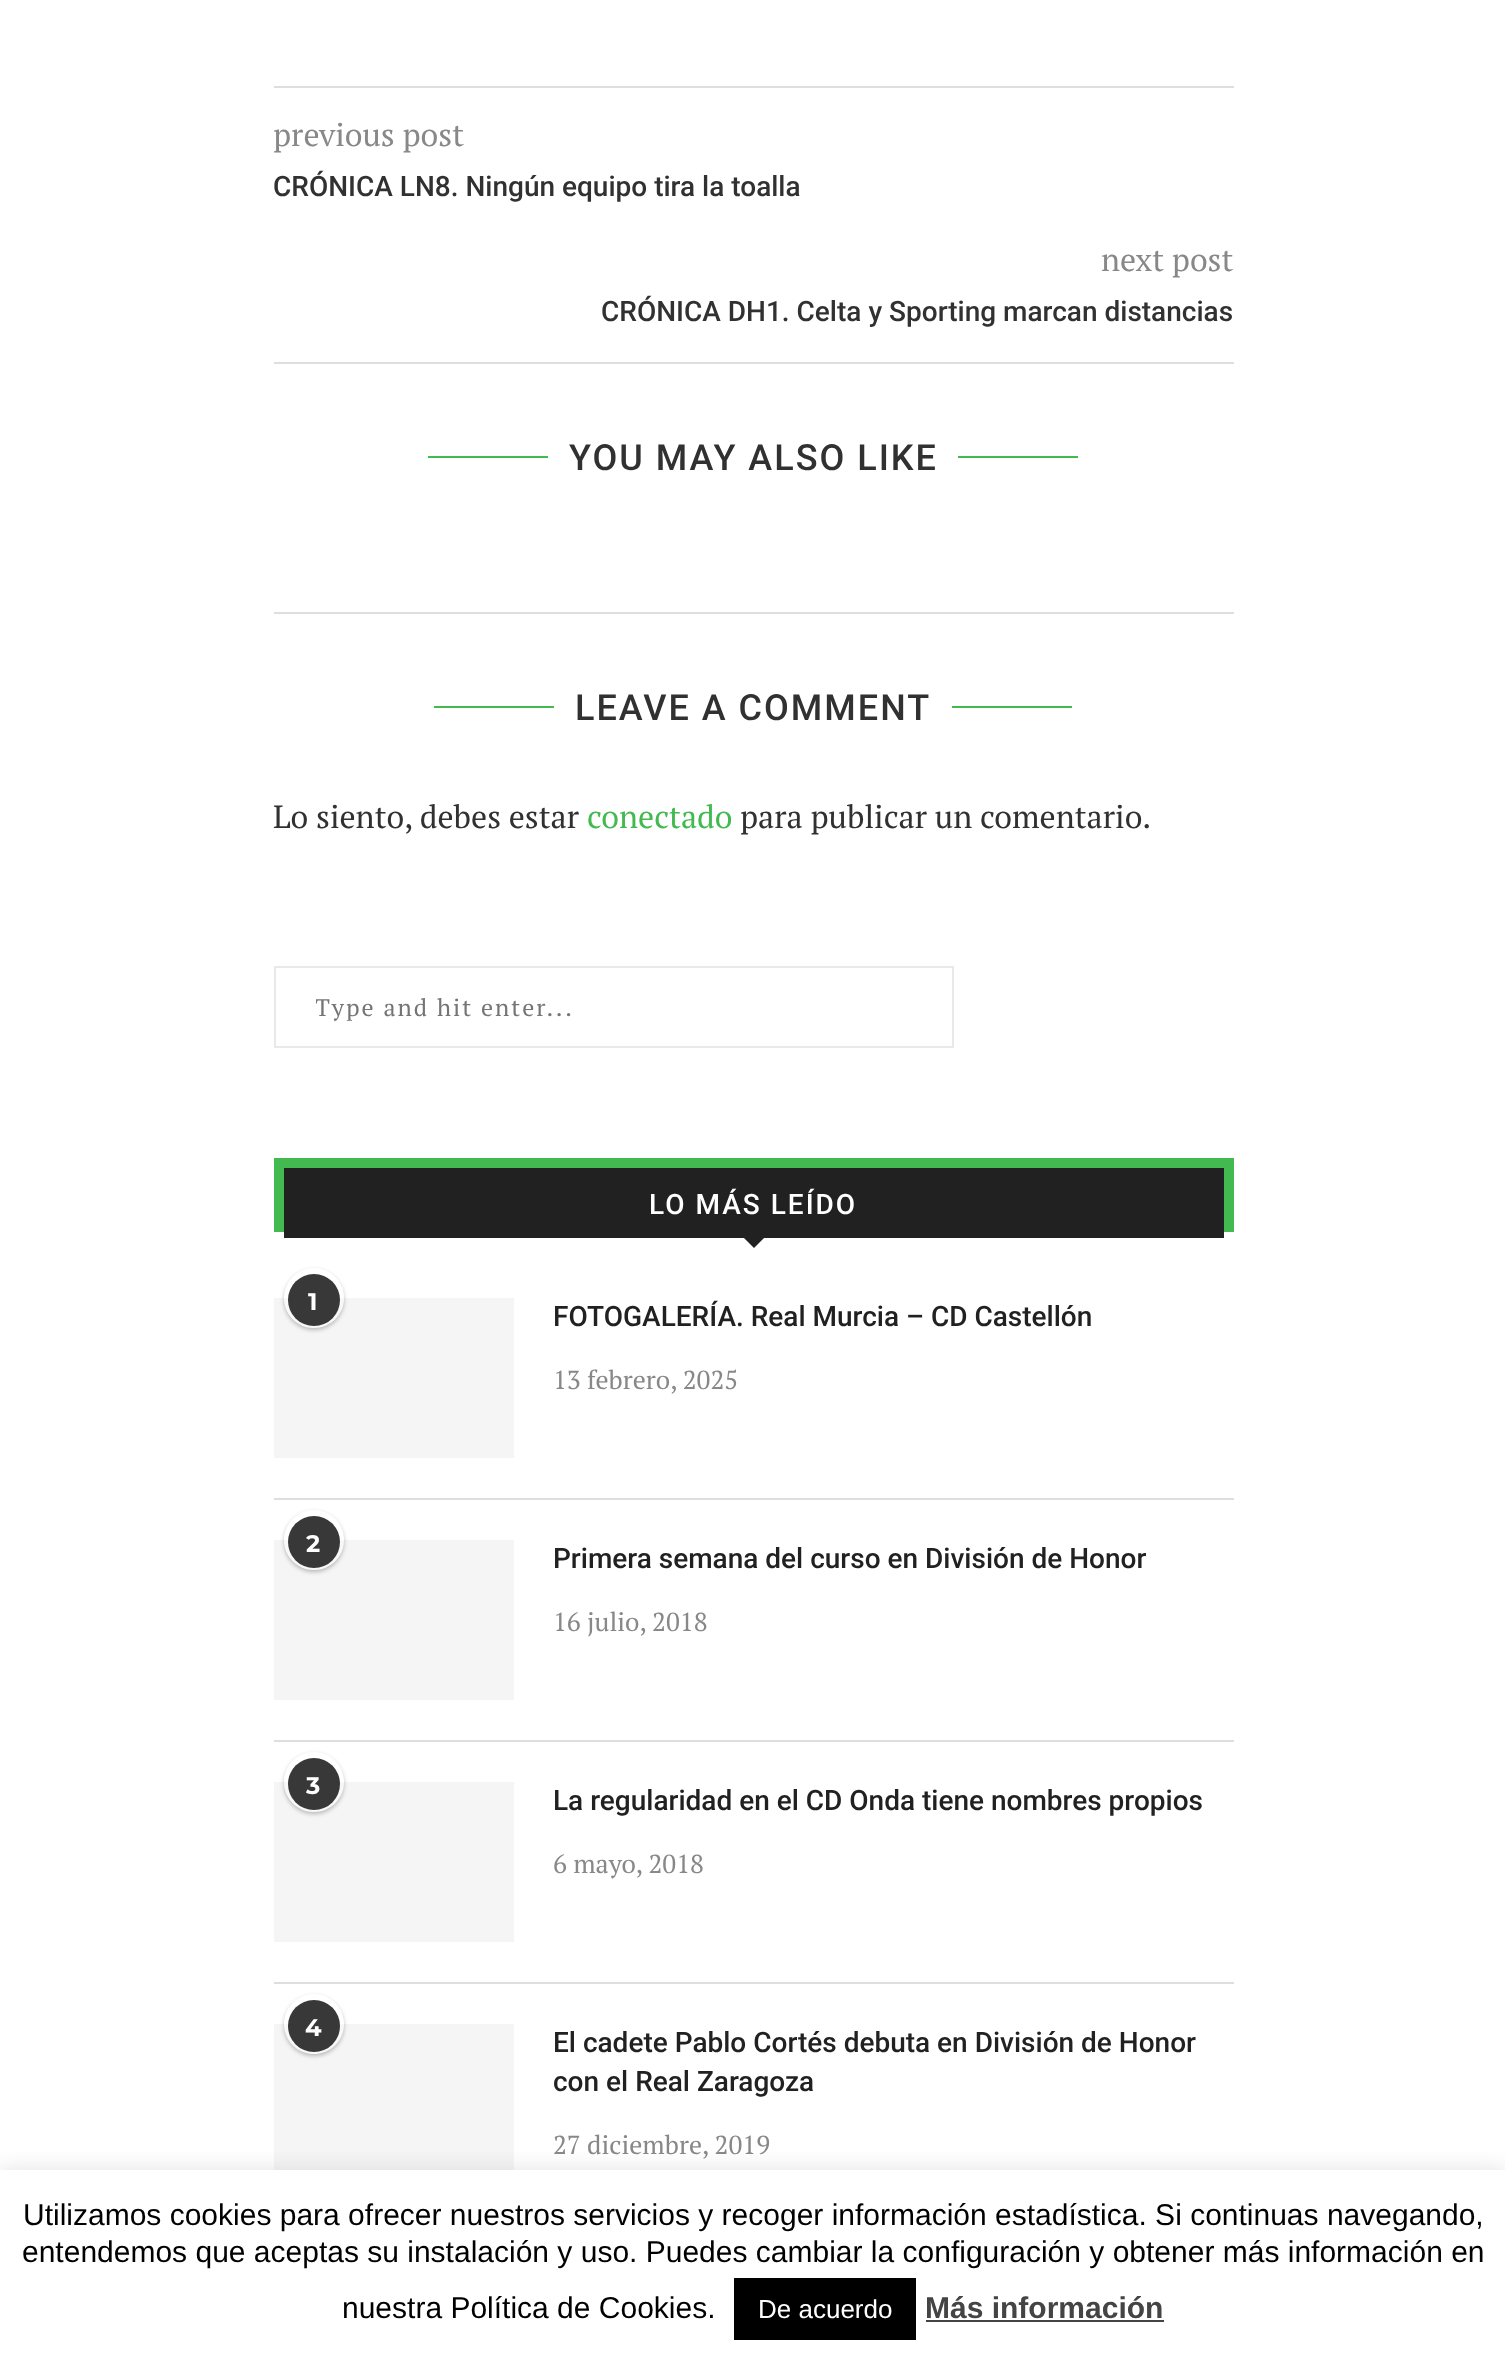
<svg xmlns="http://www.w3.org/2000/svg" width="1505" height="2364" viewBox="0 0 1505 2364">
  <style>
    .t1 { font: 32px PT Serif; fill: #888; }
    .t2 { font: 500 28px Roboto; fill: #313131; }
    .t3 { font: 500 36px Roboto; letter-spacing: 2px; fill: #313131; }
    .t4 { font: 32px PT Serif; fill: #313131; }
    .t5 { font: 32px PT Serif; fill: #43ba50; }
    .t6 { font: 24px PT Serif; letter-spacing: 2px; fill: #757575; }
    .t7 { font: 500 28px Roboto; letter-spacing: 2px; fill: #fff; }
    .t8 { font: bold 24px Montserrat; fill: #fff; }
    .t9 { font: 500 28px Roboto; fill: #212121; }
    .t10 { font: 26px PT Serif; fill: #888; }
    .t11 { font: 30px Liberation Sans; fill: #000; }
    .t12 { font: 26px Liberation Sans; fill: #fff; }
    .t13 { font: bold 30px Liberation Sans; fill: #444; }
  </style>
  <defs>
    <clipPath id="clip1"><rect x="316" y="992" width="556" height="30"/></clipPath>
    <clipPath id="clip2"><path d="M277 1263H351V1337H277ZM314 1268C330.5 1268 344 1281.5 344 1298C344 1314.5 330.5 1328 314 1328C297.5 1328 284 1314.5 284 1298C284 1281.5 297.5 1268 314 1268Z" clip-rule="evenodd"/></clipPath>
    <clipPath id="clip3"><path d="M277 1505H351V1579H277ZM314 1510C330.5 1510 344 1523.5 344 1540C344 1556.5 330.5 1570 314 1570C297.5 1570 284 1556.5 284 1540C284 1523.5 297.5 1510 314 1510Z" clip-rule="evenodd"/></clipPath>
    <clipPath id="clip4"><path d="M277 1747H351V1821H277ZM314 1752C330.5 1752 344 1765.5 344 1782C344 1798.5 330.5 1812 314 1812C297.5 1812 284 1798.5 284 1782C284 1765.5 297.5 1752 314 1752Z" clip-rule="evenodd"/></clipPath>
    <clipPath id="clip5"><path d="M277 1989H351V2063H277ZM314 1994C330.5 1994 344 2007.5 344 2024C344 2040.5 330.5 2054 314 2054C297.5 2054 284 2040.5 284 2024C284 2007.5 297.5 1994 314 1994Z" clip-rule="evenodd"/></clipPath>
  </defs>
  <rect width="100%" height="100%" fill="#fff"/>
  <rect x="274" y="86" width="960" height="2" fill="#dedede"/>
  <text x="273" y="146" class="t1">previous post</text>
  <text x="273" y="196" class="t2">CRÓNICA LN8. Ningún equipo tira la toalla</text>
  <text x="1101" y="271" class="t1">next post</text>
  <text x="601" y="321" class="t2">CRÓNICA DH1. Celta y Sporting marcan distancias</text>
  <rect x="274" y="362" width="960" height="2" fill="#dedede"/>
  <rect x="428" y="456" width="120" height="2" fill="#43ba50"/>
  <text x="569" y="470" class="t3">YOU MAY ALSO LIKE</text>
  <rect x="958" y="456" width="120" height="2" fill="#43ba50"/>
  <rect x="274" y="612" width="960" height="2" fill="#dedede"/>
  <rect x="434" y="706" width="120" height="2" fill="#43ba50"/>
  <text x="575" y="720" class="t3">LEAVE A COMMENT</text>
  <rect x="952" y="706" width="120" height="2" fill="#43ba50"/>
  <text x="273" y="828" class="t4">Lo siento, debes estar</text>
  <text x="587" y="828" class="t5">conectado</text>
  <text x="740" y="828" class="t4">para publicar un comentario.</text>
  <rect x="275" y="967" width="678" height="80" fill="none" stroke="#e9e9e9" stroke-width="2"/>
  <g clip-path="url(#clip1)">
    <text x="315" y="1016" class="t6">Type and hit enter...</text>
  </g>
  <rect x="274" y="1158" width="960" height="74" fill="#43ba50"/>
  <rect x="284" y="1168" width="940" height="70" fill="#212121"/>
  <text x="649" y="1214" class="t7">LO MÁS LEÍDO</text>
  <path d="M742 1236H766L754 1248Z" fill="#212121"/>
  <rect x="274" y="1498" width="960" height="2" fill="#dedede"/>
  <rect x="274" y="1298" width="240" height="160" fill="#f5f5f5"/>
  <g clip-path="url(#clip2)">
    <rect x="284" y="1270" width="60" height="60" rx="30" fill="#00000040" filter="blur(2px)"/>
  </g>
  <circle cx="314" cy="1298" r="30" fill="#ffffff4d"/>
  <circle cx="314" cy="1300" r="26" fill="#383838"/>
  <text x="308" y="1310" class="t8">1</text>
  <text x="553" y="1326" class="t9">FOTOGALERÍA. Real Murcia – CD Castellón</text>
  <text x="553" y="1389" class="t10">13 febrero, 2025</text>
  <rect x="274" y="1740" width="960" height="2" fill="#dedede"/>
  <rect x="274" y="1540" width="240" height="160" fill="#f5f5f5"/>
  <g clip-path="url(#clip3)">
    <rect x="284" y="1512" width="60" height="60" rx="30" fill="#00000040" filter="blur(2px)"/>
  </g>
  <circle cx="314" cy="1540" r="30" fill="#ffffff4d"/>
  <circle cx="314" cy="1542" r="26" fill="#383838"/>
  <text x="306" y="1552" class="t8">2</text>
  <text x="553" y="1568" class="t9">Primera semana del curso en División de Honor</text>
  <text x="553" y="1631" class="t10">16 julio, 2018</text>
  <rect x="274" y="1982" width="960" height="2" fill="#dedede"/>
  <rect x="274" y="1782" width="240" height="160" fill="#f5f5f5"/>
  <g clip-path="url(#clip4)">
    <rect x="284" y="1754" width="60" height="60" rx="30" fill="#00000040" filter="blur(2px)"/>
  </g>
  <circle cx="314" cy="1782" r="30" fill="#ffffff4d"/>
  <circle cx="314" cy="1784" r="26" fill="#383838"/>
  <text x="306" y="1794" class="t8">3</text>
  <text x="553" y="1810" class="t9">La regularidad en el CD Onda tiene nombres propios</text>
  <text x="553" y="1873" class="t10">6 mayo, 2018</text>
  <rect x="274" y="2024" width="240" height="146" fill="#f5f5f5"/>
  <g clip-path="url(#clip5)">
    <rect x="284" y="1996" width="60" height="60" rx="30" fill="#00000040" filter="blur(2px)"/>
  </g>
  <circle cx="314" cy="2024" r="30" fill="#ffffff4d"/>
  <circle cx="314" cy="2026" r="26" fill="#383838"/>
  <text x="305" y="2036" class="t8">4</text>
  <text x="553" y="2052" class="t9">El cadete Pablo Cortés debuta en División de Honor</text>
  <text x="553" y="2091" class="t9">con el Real Zaragoza</text>
  <text x="553" y="2154" class="t10">27 diciembre, 2019</text>
  <rect x="0" y="2168" width="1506" height="194" fill="#acabab4d" filter="blur(10px)"/>
  <rect x="0" y="2170" width="1505" height="194" fill="#fff"/>
  <text x="23" y="2225" class="t11">Utilizamos cookies para ofrecer nuestros servicios y recoger información estadística. Si continuas navegando,</text>
  <text x="22" y="2262" class="t11">entendemos que aceptas su instalación y uso. Puedes cambiar la configuración y obtener más información en</text>
  <text x="342" y="2318" class="t11">nuestra Política de Cookies.</text>
  <rect x="734" y="2278" width="182" height="62" fill="#000"/>
  <text x="758" y="2318" class="t12">De acuerdo</text>
  <text x="925" y="2318" class="t13">Más información</text>
  <rect x="926" y="2320" width="238" height="2" fill="#444"/>
</svg>
